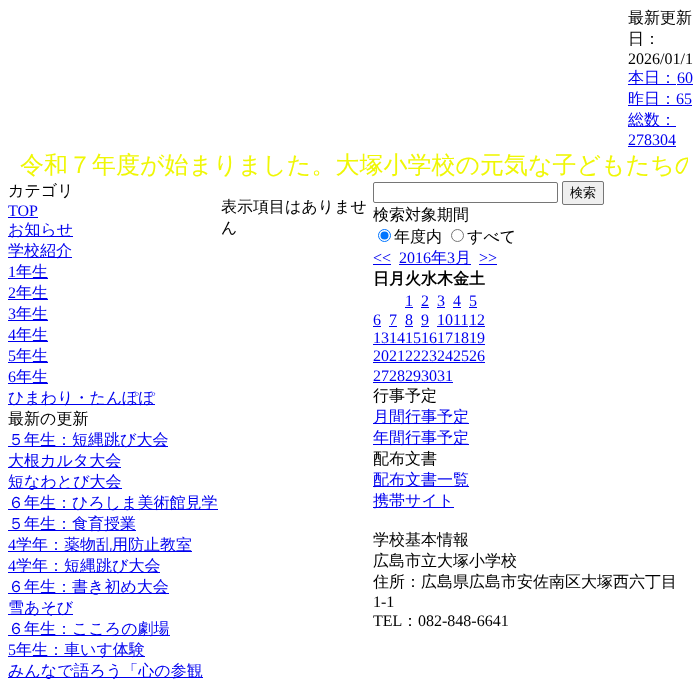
<svg xmlns="http://www.w3.org/2000/svg" width="696" height="684" viewBox="0 0 696 684">
  <style>
    .t1 { font: 500 16px WenQuanYi Zen Hei; fill: #000; }
    .t2 { font: 16px Liberation Serif; fill: #000; }
    .t3 { font: 500 16px WenQuanYi Zen Hei; fill: #00e; }
    .t4 { font: 16px Liberation Serif; fill: #00e; }
    .t5 { font: 500 24px WenQuanYi Zen Hei; fill: #eff704; }
    .t6 { font: 500 13px WenQuanYi Zen Hei; fill: #000; }
    .t7 { font: bold 16px WenQuanYi Zen Hei; fill: #000; }
  </style>
  <defs>
    <clipPath id="clip1"><rect x="8" y="149" width="680" height="32"/></clipPath>
  </defs>
  <rect width="100%" height="100%" fill="#fff"/>
  <text x="628" y="23" class="t1">最新更新</text>
  <text x="628" y="44" class="t1">日：</text>
  <text x="628" y="64" class="t2">2026/01/1</text>
  <rect x="628" y="84" width="48" height="1" fill="#00e"/>
  <text x="628" y="83" class="t3">本日：</text>
  <text x="677" y="83" class="t4">60</text>
  <rect x="677" y="84" width="16" height="1" fill="#00e"/>
  <rect x="628" y="105" width="64" height="1" fill="#00e"/>
  <text x="628" y="104" class="t3">昨日：</text>
  <text x="676" y="104" class="t4">65</text>
  <rect x="628" y="126" width="48" height="1" fill="#00e"/>
  <text x="628" y="125" class="t3">総数：</text>
  <text x="628" y="145" class="t4">278304</text>
  <rect x="628" y="146" width="48" height="1" fill="#00e"/>
  <g clip-path="url(#clip1)">
    <text x="20" y="173" class="t5">令和７年度が始まりました。大塚小学校の元気な子どもたちの</text>
  </g>
  <text x="8" y="196" class="t1">カテゴリ</text>
  <text x="8" y="216" class="t4">TOP</text>
  <rect x="8" y="217" width="30" height="1" fill="#00e"/>
  <rect x="8" y="236" width="65" height="1" fill="#00e"/>
  <text x="8" y="235" class="t3">お知らせ</text>
  <rect x="8" y="257" width="64" height="1" fill="#00e"/>
  <text x="8" y="256" class="t3">学校紹介</text>
  <text x="8" y="277" class="t4">1</text>
  <rect x="8" y="278" width="40" height="1" fill="#00e"/>
  <text x="16" y="277" class="t3">年生</text>
  <text x="8" y="298" class="t4">2</text>
  <rect x="8" y="299" width="40" height="1" fill="#00e"/>
  <text x="16" y="298" class="t3">年生</text>
  <text x="8" y="319" class="t4">3</text>
  <rect x="8" y="320" width="40" height="1" fill="#00e"/>
  <text x="16" y="319" class="t3">年生</text>
  <text x="8" y="340" class="t4">4</text>
  <rect x="8" y="341" width="40" height="1" fill="#00e"/>
  <text x="16" y="340" class="t3">年生</text>
  <text x="8" y="361" class="t4">5</text>
  <rect x="8" y="362" width="40" height="1" fill="#00e"/>
  <text x="16" y="361" class="t3">年生</text>
  <text x="8" y="382" class="t4">6</text>
  <rect x="8" y="383" width="40" height="1" fill="#00e"/>
  <text x="16" y="382" class="t3">年生</text>
  <rect x="8" y="404" width="147" height="1" fill="#00e"/>
  <text x="8" y="403" class="t3">ひまわり・たんぽぽ</text>
  <text x="8" y="424" class="t1">最新の更新</text>
  <rect x="8" y="446" width="160" height="1" fill="#00e"/>
  <text x="8" y="445" class="t3">５年生：短縄跳び大会</text>
  <rect x="8" y="467" width="113" height="1" fill="#00e"/>
  <text x="8" y="466" class="t3">大根カルタ大会</text>
  <rect x="8" y="488" width="114" height="1" fill="#00e"/>
  <text x="8" y="487" class="t3">短なわとび大会</text>
  <rect x="8" y="509" width="210" height="1" fill="#00e"/>
  <text x="8" y="508" class="t3">６年生：ひろしま美術館見学</text>
  <rect x="8" y="530" width="128" height="1" fill="#00e"/>
  <text x="8" y="529" class="t3">５年生：食育授業</text>
  <text x="8" y="550" class="t4">4</text>
  <rect x="8" y="551" width="184" height="1" fill="#00e"/>
  <text x="16" y="550" class="t3">学年：薬物乱用防止教室</text>
  <text x="8" y="571" class="t4">4</text>
  <rect x="8" y="572" width="152" height="1" fill="#00e"/>
  <text x="16" y="571" class="t3">学年：短縄跳び大会</text>
  <rect x="8" y="593" width="161" height="1" fill="#00e"/>
  <text x="8" y="592" class="t3">６年生：書き初め大会</text>
  <rect x="8" y="614" width="65" height="1" fill="#00e"/>
  <text x="8" y="613" class="t3">雪あそび</text>
  <rect x="8" y="635" width="162" height="1" fill="#00e"/>
  <text x="8" y="634" class="t3">６年生：こころの劇場</text>
  <text x="8" y="655" class="t4">5</text>
  <rect x="8" y="656" width="137" height="1" fill="#00e"/>
  <text x="16" y="655" class="t3">年生：車いす体験</text>
  <rect x="8" y="677" width="195" height="1" fill="#00e"/>
  <text x="8" y="676" class="t3">みんなで語ろう「心の参観</text>
  <text x="221" y="212" class="t1">表示項目はありませ</text>
  <text x="221" y="233" class="t1">ん</text>
  <rect x="373.5" y="182.5" width="184" height="20" rx="1.5" fill="none" stroke="#767676"/>
  <rect x="562.5" y="181.5" width="41" height="23" rx="1.5" fill="#efefef" stroke="#767676"/>
  <text x="570" y="197" class="t6">検索</text>
  <text x="373" y="220" class="t1">検索対象期間</text>
  <circle cx="384.5" cy="235.5" r="6" fill="none" stroke="#0075ff"/>
  <circle cx="384.5" cy="235.5" r="4" fill="#0075ff"/>
  <text x="394" y="242" class="t1">年度内</text>
  <circle cx="457.5" cy="235.5" r="6" fill="none" stroke="#767676"/>
  <text x="467" y="242" class="t1">すべて</text>
  <text x="373" y="263" class="t4">&lt;&lt;</text>
  <rect x="373" y="264" width="18" height="1" fill="#00e"/>
  <text x="399" y="263" class="t4">2016</text>
  <rect x="399" y="264" width="72" height="1" fill="#00e"/>
  <text x="431" y="263" class="t3">年</text>
  <text x="447" y="263" class="t4">3</text>
  <text x="455" y="263" class="t3">月</text>
  <text x="479" y="263" class="t4">&gt;&gt;</text>
  <rect x="479" y="264" width="18" height="1" fill="#00e"/>
  <text x="373" y="284" class="t7">日月火水木金土</text>
  <text x="405" y="306" class="t4">1</text>
  <rect x="405" y="307" width="8" height="1" fill="#00e"/>
  <text x="421" y="306" class="t4">2</text>
  <rect x="421" y="307" width="8" height="1" fill="#00e"/>
  <text x="437" y="306" class="t4">3</text>
  <rect x="437" y="307" width="8" height="1" fill="#00e"/>
  <text x="453" y="306" class="t4">4</text>
  <rect x="453" y="307" width="8" height="1" fill="#00e"/>
  <text x="469" y="306" class="t4">5</text>
  <rect x="469" y="307" width="8" height="1" fill="#00e"/>
  <text x="373" y="325" class="t4">6</text>
  <rect x="373" y="326" width="8" height="1" fill="#00e"/>
  <text x="389" y="325" class="t4">7</text>
  <rect x="389" y="326" width="8" height="1" fill="#00e"/>
  <text x="405" y="325" class="t4">8</text>
  <rect x="405" y="326" width="8" height="1" fill="#00e"/>
  <text x="421" y="325" class="t4">9</text>
  <rect x="421" y="326" width="8" height="1" fill="#00e"/>
  <text x="437" y="325" class="t4">1011</text>
  <rect x="437" y="326" width="31" height="1" fill="#00e"/>
  <text x="469" y="325" class="t4">12</text>
  <rect x="469" y="326" width="16" height="1" fill="#00e"/>
  <text x="373" y="343" class="t4">13141516171819</text>
  <rect x="373" y="344" width="112" height="1" fill="#00e"/>
  <text x="373" y="361" class="t4">20212223242526</text>
  <rect x="373" y="362" width="112" height="1" fill="#00e"/>
  <text x="373" y="381" class="t4">2728293031</text>
  <rect x="373" y="382" width="80" height="1" fill="#00e"/>
  <text x="373" y="401" class="t1">行事予定</text>
  <rect x="373" y="423" width="96" height="1" fill="#00e"/>
  <text x="373" y="422" class="t3">月間行事予定</text>
  <rect x="373" y="444" width="96" height="1" fill="#00e"/>
  <text x="373" y="443" class="t3">年間行事予定</text>
  <text x="373" y="464" class="t1">配布文書</text>
  <rect x="373" y="486" width="96" height="1" fill="#00e"/>
  <text x="373" y="485" class="t3">配布文書一覧</text>
  <rect x="373" y="507" width="81" height="1" fill="#00e"/>
  <text x="373" y="506" class="t3">携帯サイト</text>
  <text x="373" y="545" class="t1">学校基本情報</text>
  <text x="373" y="566" class="t1">広島市立大塚小学校</text>
  <text x="373" y="587" class="t1">住所：広島県広島市安佐南区大塚西六丁目</text>
  <text x="373" y="607" class="t2">1-1</text>
  <text x="373" y="626" class="t2">TEL</text>
  <text x="402" y="626" class="t1">：</text>
  <text x="418" y="626" class="t2">082-848-6641</text>
</svg>
